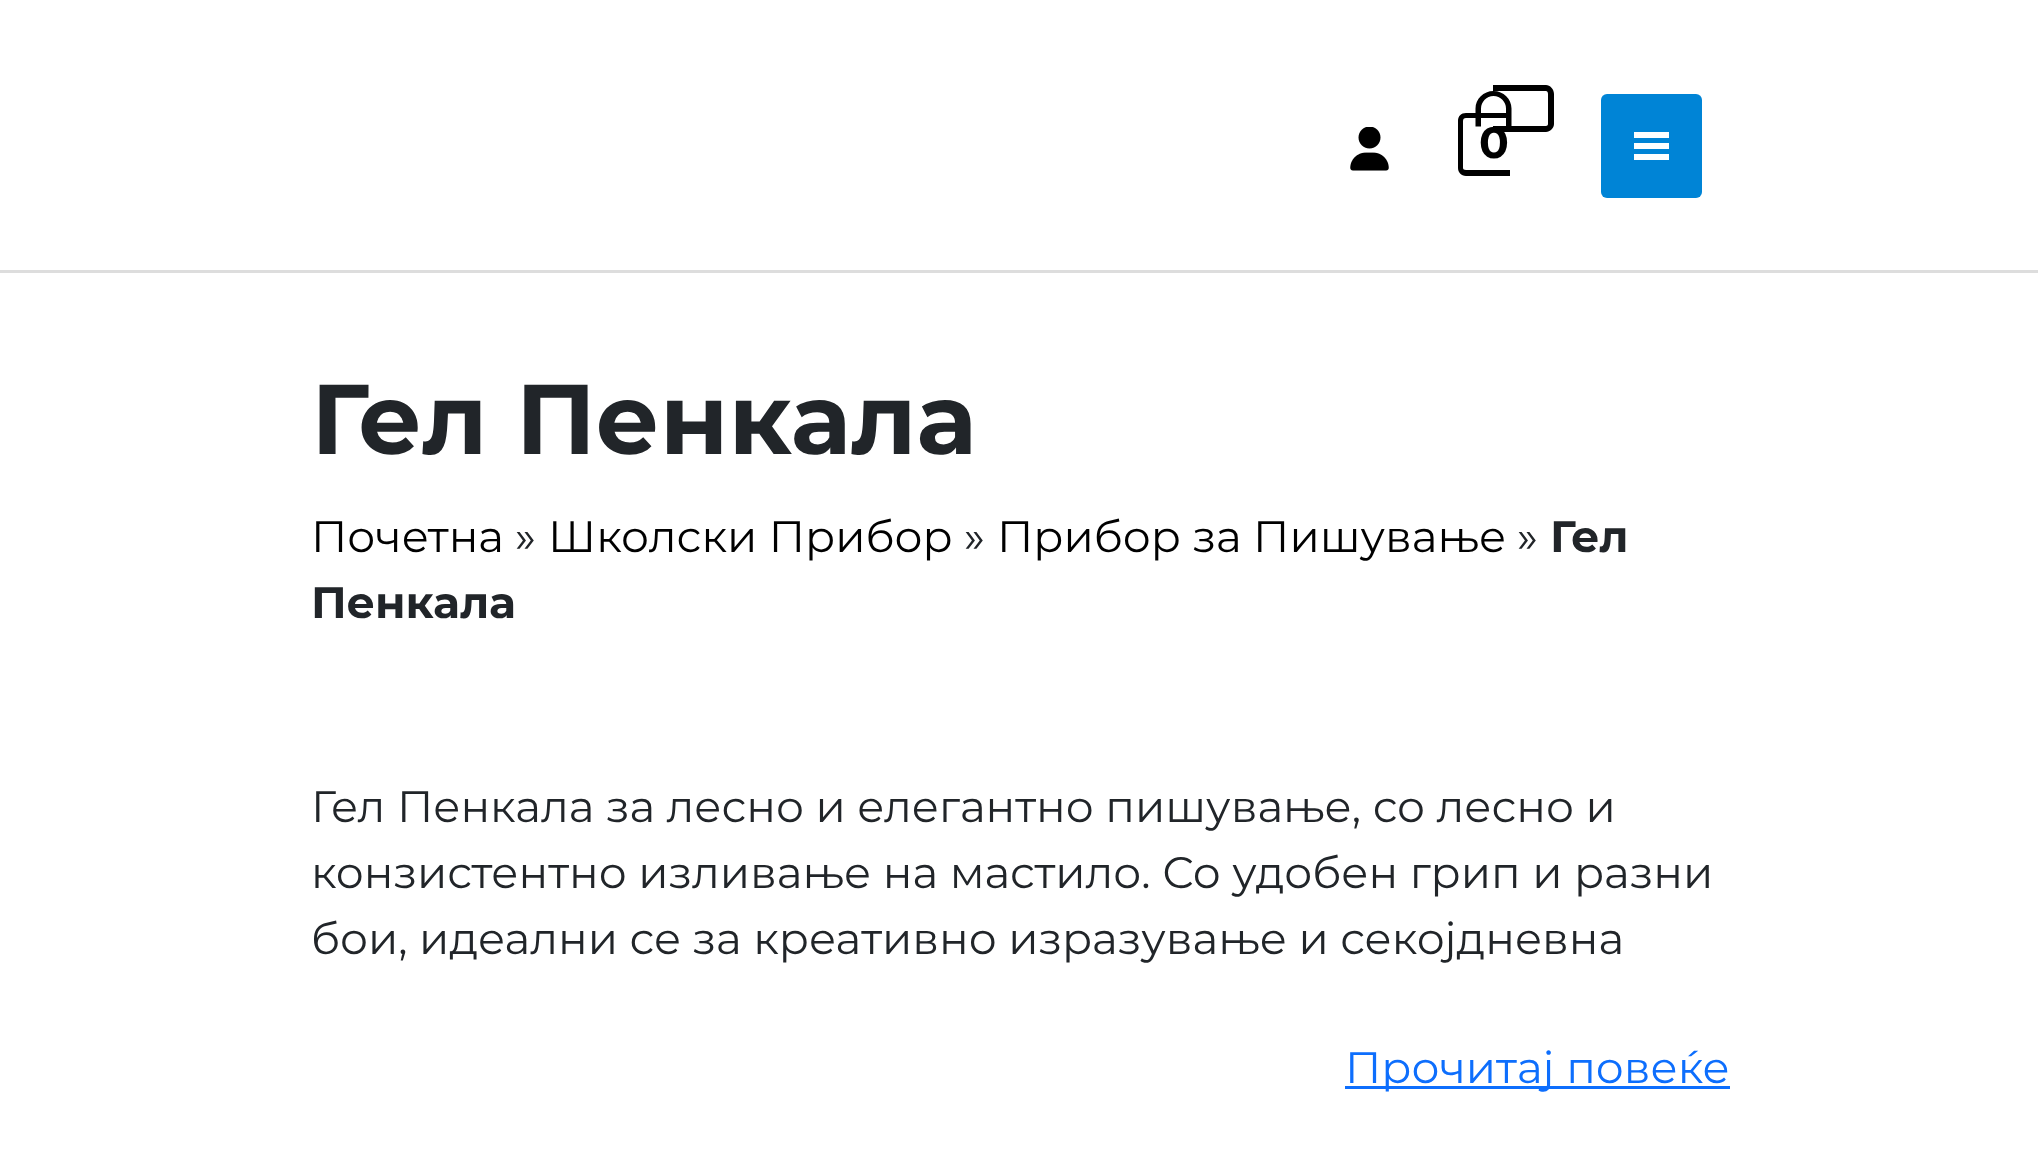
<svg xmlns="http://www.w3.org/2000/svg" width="2038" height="1169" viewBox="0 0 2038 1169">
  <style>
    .t1 { font: bold 44px Montserrat; fill: #000; }
    .t2 { font: bold 99px Montserrat; fill: #212529; }
    .t3 { font: 44px Montserrat; fill: #000; }
    .t4 { font: 44px Montserrat; fill: #212529; }
    .t5 { font: bold 44px Montserrat; fill: #212529; }
    .t6 { font: 44px Montserrat; fill: #0d6efd; }
  </style>
  <rect width="100%" height="100%" fill="#fff"/>
  <rect x="0" y="270" width="2038" height="3" fill="#ddd"/>
  <image x="1350" y="127" width="39" height="44" href="images/1.png"/>
  <path d="M1466 113H1510V176H1466C1461 176 1458 172 1458 168V121C1458 116 1461 113 1466 113ZM1466 118H1510V170H1466C1464 170 1463 169 1463 168V121C1463 119 1464 118 1466 118Z" fill="#000" fill-rule="evenodd"/>
  <path d="M1493 85H1546C1550 85 1554 89 1554 94V124C1554 128 1550 132 1546 132H1493ZM1493 91H1546C1547 91 1548 92 1548 94V124C1548 125 1547 126 1546 126H1493Z" fill="#000" fill-rule="evenodd"/>
  <path d="M1493.5 91C1503.5 91 1511.5 99 1511.5 108.5V126.5H1475.5V108.5C1475.5 99 1483.5 91 1493.5 91ZM1493.5 96C1500.5 96 1506 102 1506 108.5V126.5H1481V108.5C1481 102 1486.5 96 1493.5 96Z" fill="#000" fill-rule="evenodd"/>
  <text x="1479" y="158" class="t1">0</text>
  <rect x="1601" y="94" width="101" height="104" rx="6" fill="#0084d6"/>
  <rect x="1634" y="132" width="35" height="6" fill="#fff"/>
  <rect x="1634" y="143" width="35" height="6" fill="#fff"/>
  <rect x="1634" y="154" width="35" height="6" fill="#fff"/>
  <text x="311" y="454" class="t2">Гел Пенкала</text>
  <text x="311" y="552" class="t3">Почетна</text>
  <text x="515" y="552" class="t4">»</text>
  <text x="548" y="552" class="t3">Школски Прибор</text>
  <text x="964" y="552" class="t4">»</text>
  <text x="997" y="552" class="t3">Прибор за Пишување</text>
  <text x="1517" y="552" class="t4">»</text>
  <text x="1550" y="552" class="t5">Гел</text>
  <text x="311" y="618" class="t5">Пенкала</text>
  <text x="311" y="822" class="t4">Гел Пенкала за лесно и елегантно пишување, со лесно и</text>
  <text x="311" y="888" class="t4">конзистентно изливање на мастило. Со удобен грип и разни</text>
  <text x="311" y="954" class="t4">бои, идеални се за креативно изразување и секојдневна</text>
  <rect x="1345" y="1086" width="385" height="3" fill="#0d6efd"/>
  <text x="1345" y="1083" class="t6">Прочитај повеќе</text>
</svg>
